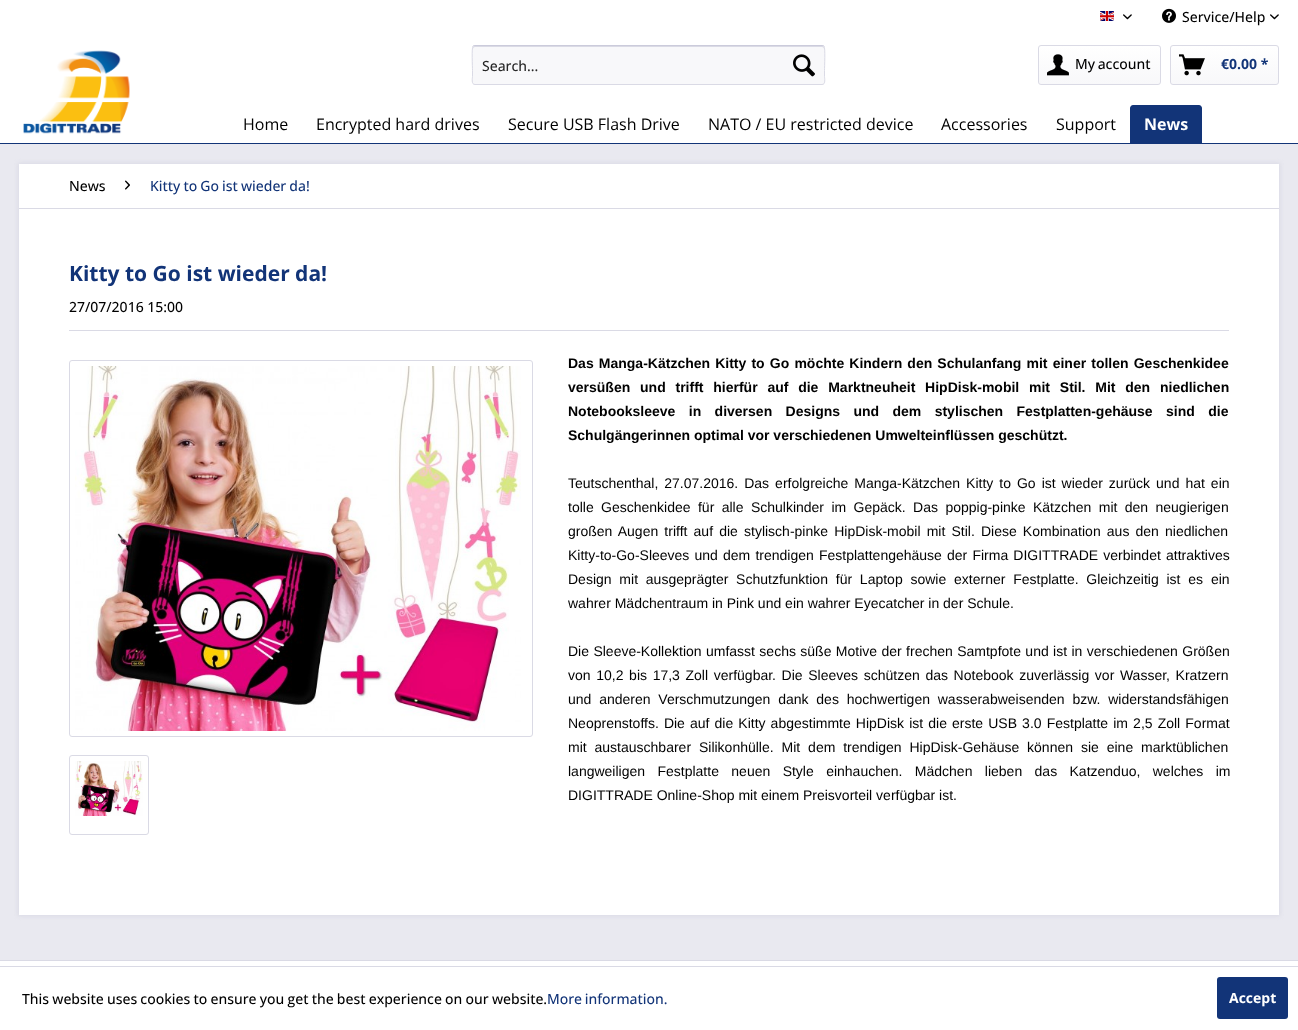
<svg xmlns="http://www.w3.org/2000/svg" width="1298" height="1030" viewBox="0 0 1298 1030">
  <style>
    .t1 { font: 500 14px Open Sans; fill: #000; }
    .t2 { font: 500 14px Open Sans; fill: #262626; }
    .t3 { font: bold 14px Open Sans; fill: #123478; }
    .t4 { font: 16px Open Sans; fill: #000; }
    .t5 { font: bold 16px Open Sans; fill: #fff; }
    .t6 { font: 500 14px Open Sans; fill: #123478; }
    .t7 { font: bold 21px Open Sans; fill: #123478; }
    .t8 { font: bold 14px Liberation Sans; fill: #000; }
    .t9 { font: 14px Liberation Sans; fill: #000; }
    .t10 { font: bold 14px Open Sans; fill: #fff; }
  </style>
  <defs>
    <linearGradient id="g1" gradientUnits="userSpaceOnUse" x1="1100" y1="46" x2="1100" y2="84"><stop offset="0" stop-color="#fff"/><stop offset="1" stop-color="#f8f8fa"/></linearGradient>
    <linearGradient id="g2" gradientUnits="userSpaceOnUse" x1="1225" y1="46" x2="1225" y2="84"><stop offset="0" stop-color="#fff"/><stop offset="1" stop-color="#f8f8fa"/></linearGradient>
  </defs>
  <rect width="100%" height="100%" fill="#e9e9f0"/>
  <rect x="0" y="0" width="1298" height="143" fill="#fff"/>
  <image x="1100" y="11" width="14" height="10" href="images/1.png"/>
  <image x="1123" y="14" width="9" height="6" href="images/2.png"/>
  <image x="1162" y="8" width="14" height="15" href="images/3.png"/>
  <text x="1182" y="22" class="t1">Service/Help</text>
  <image x="1270" y="14" width="9" height="6" href="images/2.png"/>
  <image x="23" y="50" width="107" height="84" href="images/4.png"/>
  <rect x="472" y="45" width="353" height="40" rx="3" fill="#f8f8fa"/>
  <path d="M475 47H822C823 47 824 48 824 49C824 48 824 46 822 46H475C473 46 473 48 473 49C473 48 474 47 475 47Z" fill="#dadae5"/>
  <path d="M473 46L475 45.5H822L824 46" fill="none" stroke="#cbcbdb"/>
  <path d="M824 46C825.5 48 824.5 67 824.5 70.5V76.5C824.5 78 826 84.5 822 84.5H475C471 84.5 472.5 78 472.5 76.5V70.5C472.5 67 471.5 48 473 46" fill="none" stroke="#dadae5"/>
  <text x="482" y="71" class="t2">Search...</text>
  <image x="793" y="54" width="22" height="23" href="images/5.png"/>
  <rect x="1039" y="46" width="121" height="38" rx="2" fill="url(#g1)"/>
  <rect x="1038.5" y="45.5" width="122" height="39" rx="2.5" fill="none" stroke="#dadae5"/>
  <image x="1047" y="54" width="22" height="22" href="images/6.png"/>
  <text x="1075" y="69" word-spacing="-1" class="t1">My account</text>
  <rect x="1171" y="46" width="107" height="38" rx="2" fill="url(#g2)"/>
  <rect x="1170.5" y="45.5" width="108" height="39" rx="2.5" fill="none" stroke="#dadae5"/>
  <image x="1179" y="54" width="26" height="22" href="images/7.png"/>
  <text x="1221" y="69" class="t3">€0.00 *</text>
  <rect x="0" y="143" width="1298" height="1" fill="#123478"/>
  <text x="243" y="130" class="t4">Home</text>
  <text x="316" y="130" class="t4">Encrypted hard drives</text>
  <text x="508" y="130" class="t4">Secure USB Flash Drive</text>
  <text x="708" y="130" class="t4">NATO / EU restricted device</text>
  <text x="941" y="130" class="t4">Accessories</text>
  <text x="1056" y="130" class="t4">Support</text>
  <path d="M1133 105H1199C1200.5 105 1202 106.5 1202 108V143H1130V108C1130 106.5 1131.5 105 1133 105Z" fill="#123478"/>
  <text x="1144" y="130" class="t5">News</text>
  <rect x="18" y="163" width="1262" height="753" fill="#dadae5" filter="blur(2px)"/>
  <rect x="19" y="164" width="1260" height="751" fill="#fff"/>
  <rect x="19" y="208" width="1260" height="1" fill="#dadae5"/>
  <text x="69" y="191" class="t1">News</text>
  <image x="125" y="180" width="5" height="10" href="images/8.png"/>
  <text x="150" y="191" word-spacing="-0.5" class="t6">Kitty to Go ist wieder da!</text>
  <text x="69" y="281" class="t7">Kitty to Go ist wieder da!</text>
  <rect x="69" y="330" width="1160" height="1" fill="#dadae5"/>
  <text x="69" y="312" class="t1">27/07/2016 15:00</text>
  <rect x="69.5" y="360.5" width="463" height="376" rx="2.5" fill="none" stroke="#dadae5"/>
  <image x="75" y="366" width="446" height="365" href="images/9.png"/>
  <rect x="69.5" y="755.5" width="79" height="79" rx="2.5" fill="none" stroke="#dadae5"/>
  <image x="75" y="761" width="68" height="55" href="images/10.png"/>
  <text x="568" y="368" word-spacing="1.25" class="t8">Das Manga-Kätzchen Kitty to Go möchte Kindern den Schulanfang mit einer tollen Geschenkidee</text>
  <text x="568" y="392" word-spacing="5.9" class="t8">versüßen und trifft hierfür auf die Marktneuheit HipDisk-mobil mit Stil. Mit den niedlichen</text>
  <text x="568" y="416" word-spacing="9.5" class="t8">Notebooksleeve in diversen Designs und dem stylischen Festplatten-gehäuse sind die</text>
  <text x="568" y="440" class="t8">Schulgängerinnen optimal vor verschiedenen Umwelteinflüssen geschützt.</text>
  <text x="568" y="488" word-spacing="2.1" class="t9">Teutschenthal, 27.07.2016. Das erfolgreiche Manga-Kätzchen Kitty to Go ist wieder zurück und hat ein</text>
  <text x="568" y="512" word-spacing="3.5" class="t9">tolle Geschenkidee für alle Schulkinder im Gepäck. Das poppig-pinke Kätzchen mit den neugierigen</text>
  <text x="568" y="536" word-spacing="2.25" class="t9">großen Augen trifft auf die stylisch-pinke HipDisk-mobil mit Stil. Diese Kombination aus den niedlichen</text>
  <text x="568" y="560" word-spacing="1.25" class="t9">Kitty-to-Go-Sleeves und dem trendigen Festplattengehäuse der Firma DIGITTRADE verbindet attraktives</text>
  <text x="568" y="584" word-spacing="3.9" class="t9">Design mit ausgeprägter Schutzfunktion für Laptop sowie externer Festplatte. Gleichzeitig ist es ein</text>
  <text x="568" y="608" class="t9">wahrer Mädchentraum in Pink und ein wahrer Eyecatcher in der Schule.</text>
  <text x="568" y="656" word-spacing="0.5" class="t9">Die Sleeve-Kollektion umfasst sechs süße Motive der frechen Samtpfote und ist in verschiedenen Größen</text>
  <text x="568" y="680" word-spacing="1.75" class="t9">von 10,2 bis 17,3 Zoll verfügbar. Die Sleeves schützen das Notebook zuverlässig vor Wasser, Kratzern</text>
  <text x="568" y="704" word-spacing="3.9" class="t9">und anderen Verschmutzungen dank des hochwertigen wasserabweisenden bzw. widerstandsfähigen</text>
  <text x="568" y="728" word-spacing="1.2" class="t9">Neoprenstoffs. Die auf die Kitty abgestimmte HipDisk ist die erste USB 3.0 Festplatte im 2,5 Zoll Format</text>
  <text x="568" y="752" word-spacing="4" class="t9">mit austauschbarer Silikonhülle. Mit dem trendigen HipDisk-Gehäuse können sie eine marktüblichen</text>
  <text x="568" y="776" word-spacing="8.5" class="t9">langweiligen Festplatte neuen Style einhauchen. Mädchen lieben das Katzenduo, welches im</text>
  <text x="568" y="800" class="t9">DIGITTRADE Online-Shop mit einem Preisvorteil verfügbar ist.</text>
  <rect x="0" y="961" width="1298" height="5" fill="#fff"/>
  <rect x="0" y="960" width="1298" height="1" fill="#dadae5"/>
  <rect x="0" y="967" width="1298" height="63" fill="#fff"/>
  <rect x="0" y="966" width="1298" height="1" fill="#dadae5"/>
  <text x="22" y="1004" word-spacing="-0.4" class="t1">This website uses cookies to ensure you get the best experience on our website.</text>
  <text x="547" y="1004" word-spacing="-1" class="t6">More information.</text>
  <rect x="1217" y="977" width="71" height="42" rx="3" fill="#123478"/>
  <text x="1229" y="1003" class="t10">Accept</text>
</svg>
